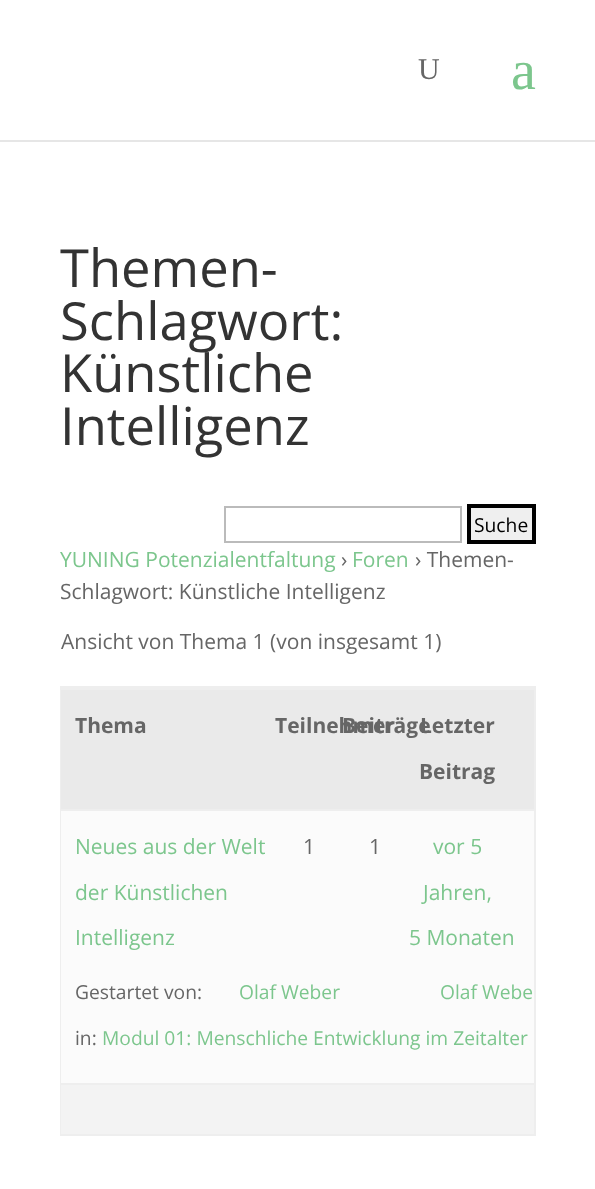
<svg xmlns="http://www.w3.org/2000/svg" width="595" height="1189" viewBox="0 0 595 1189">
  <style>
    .t1 { font: 30px Liberation Serif; fill: #666; }
    .t2 { font: 56px Liberation Serif; fill: #7cc68d; }
    .t3 { font: 52.5px Open Sans; fill: #333; }
    .t4 { font: 19.25px Open Sans; fill: #000; }
    .t5 { font: 21px Open Sans; fill: #7cc68d; }
    .t6 { font: 21px Open Sans; fill: #666; }
    .t7 { font: bold 21px Open Sans; fill: #666; }
    .t8 { font: 19.25px Open Sans; fill: #666; }
    .t9 { font: 19.25px Open Sans; fill: #7cc68d; }
  </style>
  <rect width="100%" height="100%" fill="#fff"/>
  <rect x="0" y="140" width="595" height="2" fill="#e6e6e6"/>
  <text x="418" y="79" class="t1">U</text>
  <text x="511" y="89" class="t2">a</text>
  <text x="60" y="287" class="t3">Themen-</text>
  <text x="60" y="340" class="t3">Schlagwort:</text>
  <text x="60" y="392" class="t3">Künstliche</text>
  <text x="60" y="445" class="t3">Intelligenz</text>
  <rect x="225" y="507" width="236" height="35" fill="none" stroke="#bbb" stroke-width="2"/>
  <rect x="469" y="506" width="65" height="36" fill="#efefef" stroke="#000" stroke-width="4"/>
  <text x="474" y="532" class="t4">Suche</text>
  <text x="60" y="567" class="t5">YUNING Potenzialentfaltung</text>
  <text x="341" y="567" class="t6">›</text>
  <text x="352" y="567" class="t5">Foren</text>
  <text x="415" y="567" class="t6">› Themen-</text>
  <text x="60" y="599" class="t6">Schlagwort: Künstliche Intelligenz</text>
  <text x="61" y="649" class="t6">Ansicht von Thema 1 (von insgesamt 1)</text>
  <rect x="61" y="687" width="474" height="448" fill="none" stroke="#eee" stroke-width="2"/>
  <rect x="61" y="690" width="473" height="119" fill="#eaeaea"/>
  <rect x="61" y="688" width="473" height="2" fill="#eee"/>
  <text x="75" y="733" class="t7">Thema</text>
  <text x="275" y="733" class="t7">Teilnehmer</text>
  <text x="342" y="733" class="t7">Beiträge</text>
  <text x="420" y="733" class="t7">Letzter</text>
  <text x="419" y="779" class="t7">Beitrag</text>
  <rect x="61" y="811" width="473" height="272" fill="#fbfbfb"/>
  <rect x="61" y="809" width="473" height="2" fill="#eee"/>
  <text x="75" y="854" class="t5">Neues aus der Welt</text>
  <text x="75" y="900" class="t5">der Künstlichen</text>
  <text x="75" y="945" class="t5">Intelligenz</text>
  <text x="75" y="999" class="t8">Gestartet von:</text>
  <text x="239" y="999" class="t9">Olaf Weber</text>
  <text x="75" y="1045" class="t8">in:</text>
  <text x="102" y="1045" class="t9">Modul 01: Menschliche Entwicklung im Zeitalter</text>
  <text x="303" y="854" class="t6">1</text>
  <text x="369" y="854" class="t6">1</text>
  <text x="433" y="854" class="t5">vor 5</text>
  <text x="423" y="900" class="t5">Jahren,</text>
  <text x="409" y="945" class="t5">5 Monaten</text>
  <text x="440" y="999" class="t9">Olaf Webe</text>
  <rect x="61" y="1085" width="473" height="49" fill="#f3f3f3"/>
  <rect x="61" y="1083" width="473" height="2" fill="#eee"/>
</svg>
